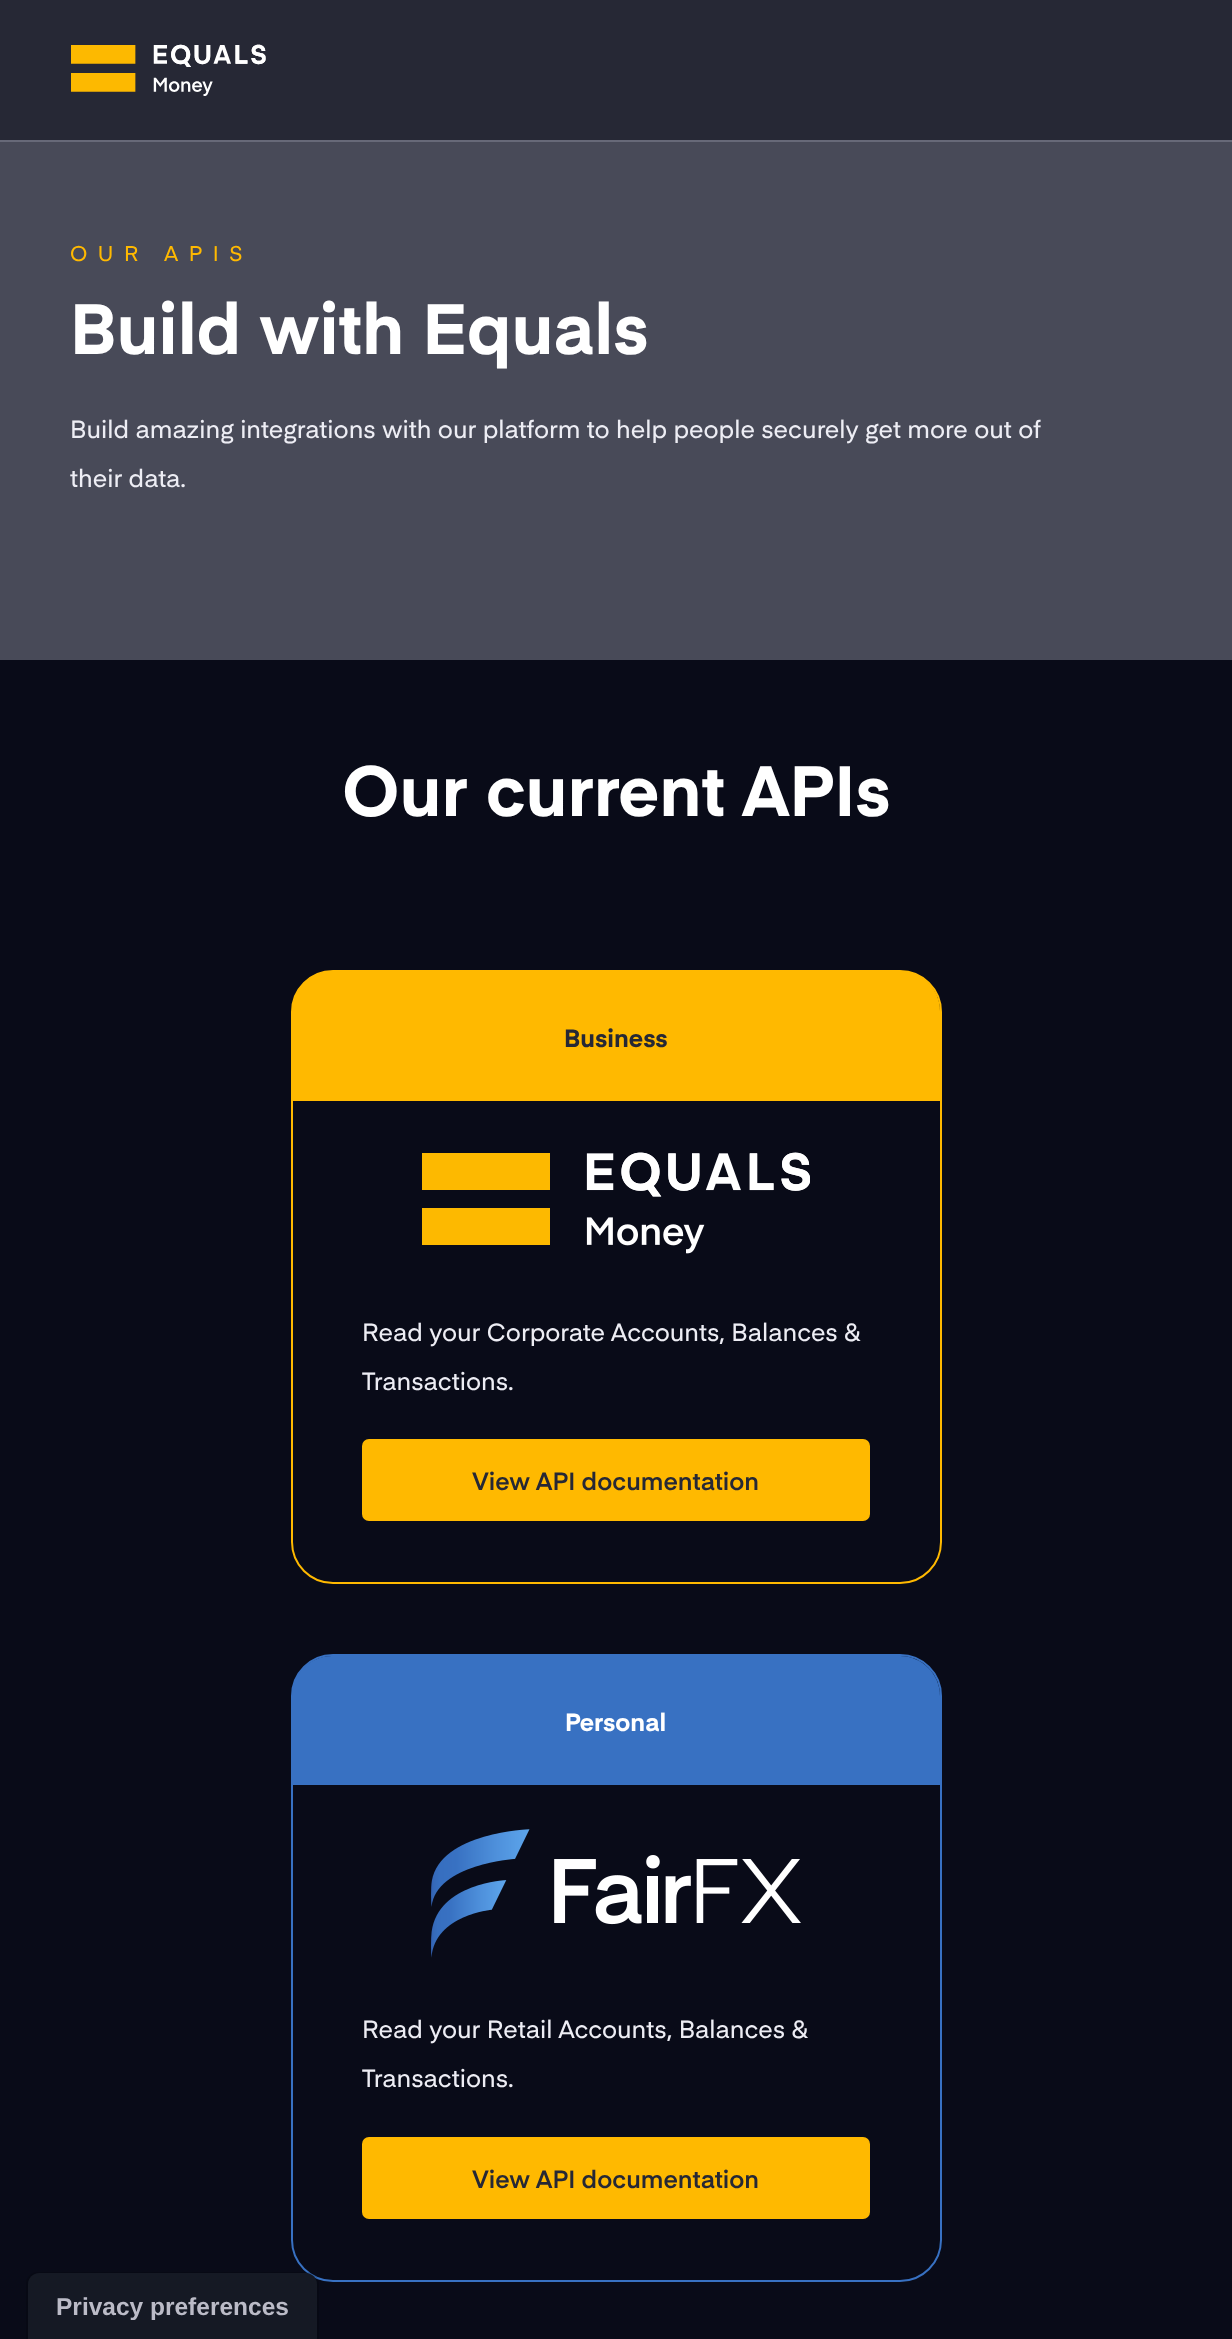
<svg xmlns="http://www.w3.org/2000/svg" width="1232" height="2339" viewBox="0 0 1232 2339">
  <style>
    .t1 { font: 21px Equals; letter-spacing: 10.5px; fill: #ffb900; }
    .t2 { font: bold 70px Equals; fill: #fff; }
    .t3 { font: 24.5px Equals; fill: #ededf4; }
    .t4 { font: bold 24.5px Equals; fill: #262835; }
    .t5 { font: 600 24.5px Equals; fill: #262835; }
    .t6 { font: bold 24.5px Equals; fill: #fff; }
    .t7 { font: bold 24.5px Liberation Sans; fill: #bbbbc7; }
  </style>
  <rect width="100%" height="100%" fill="#090b18"/>
  <rect x="0" y="0" width="1232" height="140" fill="#262835"/>
  <rect x="0" y="140" width="1232" height="2" fill="#676978"/>
  <image x="71" y="44" width="195" height="52" href="images/1.png"/>
  <rect x="0" y="142" width="1232" height="518" fill="#484a58"/>
  <text x="70" y="261" class="t1">OUR APIS</text>
  <text x="70" y="354" class="t2">Build with Equals</text>
  <text x="70" y="438" class="t3">Build amazing integrations with our platform to help people securely get more out of</text>
  <text x="70" y="487" class="t3">their data.</text>
  <text x="342" y="816" class="t2">Our current APIs</text>
  <rect x="292" y="971" width="649" height="612" rx="41" fill="none" stroke="#ffb900" stroke-width="2"/>
  <path d="M332 971H900C922 971 940 989 940 1011V1101H292V1011C292 989 310 971 332 971Z" fill="#ffb900"/>
  <text x="564" y="1047" class="t4">Business</text>
  <image x="422" y="1152" width="388" height="102" href="images/2.png"/>
  <text x="362" y="1341" class="t3">Read your Corporate Accounts, Balances &amp;</text>
  <text x="362" y="1390" class="t3">Transactions.</text>
  <rect x="362" y="1439" width="508" height="82" rx="7" fill="#ffb900"/>
  <text x="472" y="1490" class="t5">View API documentation</text>
  <rect x="292" y="1655" width="649" height="626" rx="41" fill="none" stroke="#3871c2" stroke-width="2"/>
  <path d="M332 1656H900C922 1656 940 1674 940 1696V1785H292V1696C292 1674 310 1656 332 1656Z" fill="#3871c2"/>
  <text x="565" y="1731" class="t6">Personal</text>
  <image x="431" y="1829" width="370" height="129" href="images/3.png"/>
  <text x="362" y="2038" class="t3">Read your Retail Accounts, Balances &amp;</text>
  <text x="362" y="2087" class="t3">Transactions.</text>
  <rect x="362" y="2137" width="508" height="82" rx="7" fill="#ffb900"/>
  <text x="472" y="2188" class="t5">View API documentation</text>
  <path d="M38 2273H307C313 2273 318 2278 318 2284V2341H27V2284C27 2278 32 2273 38 2273Z" fill="none" stroke="#00000026" stroke-width="2"/>
  <path d="M39 2273H306C312 2273 317 2278 317 2284V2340H28V2284C28 2278 33 2273 39 2273Z" fill="#151924"/>
  <text x="56" y="2315" class="t7">Privacy preferences</text>
</svg>
